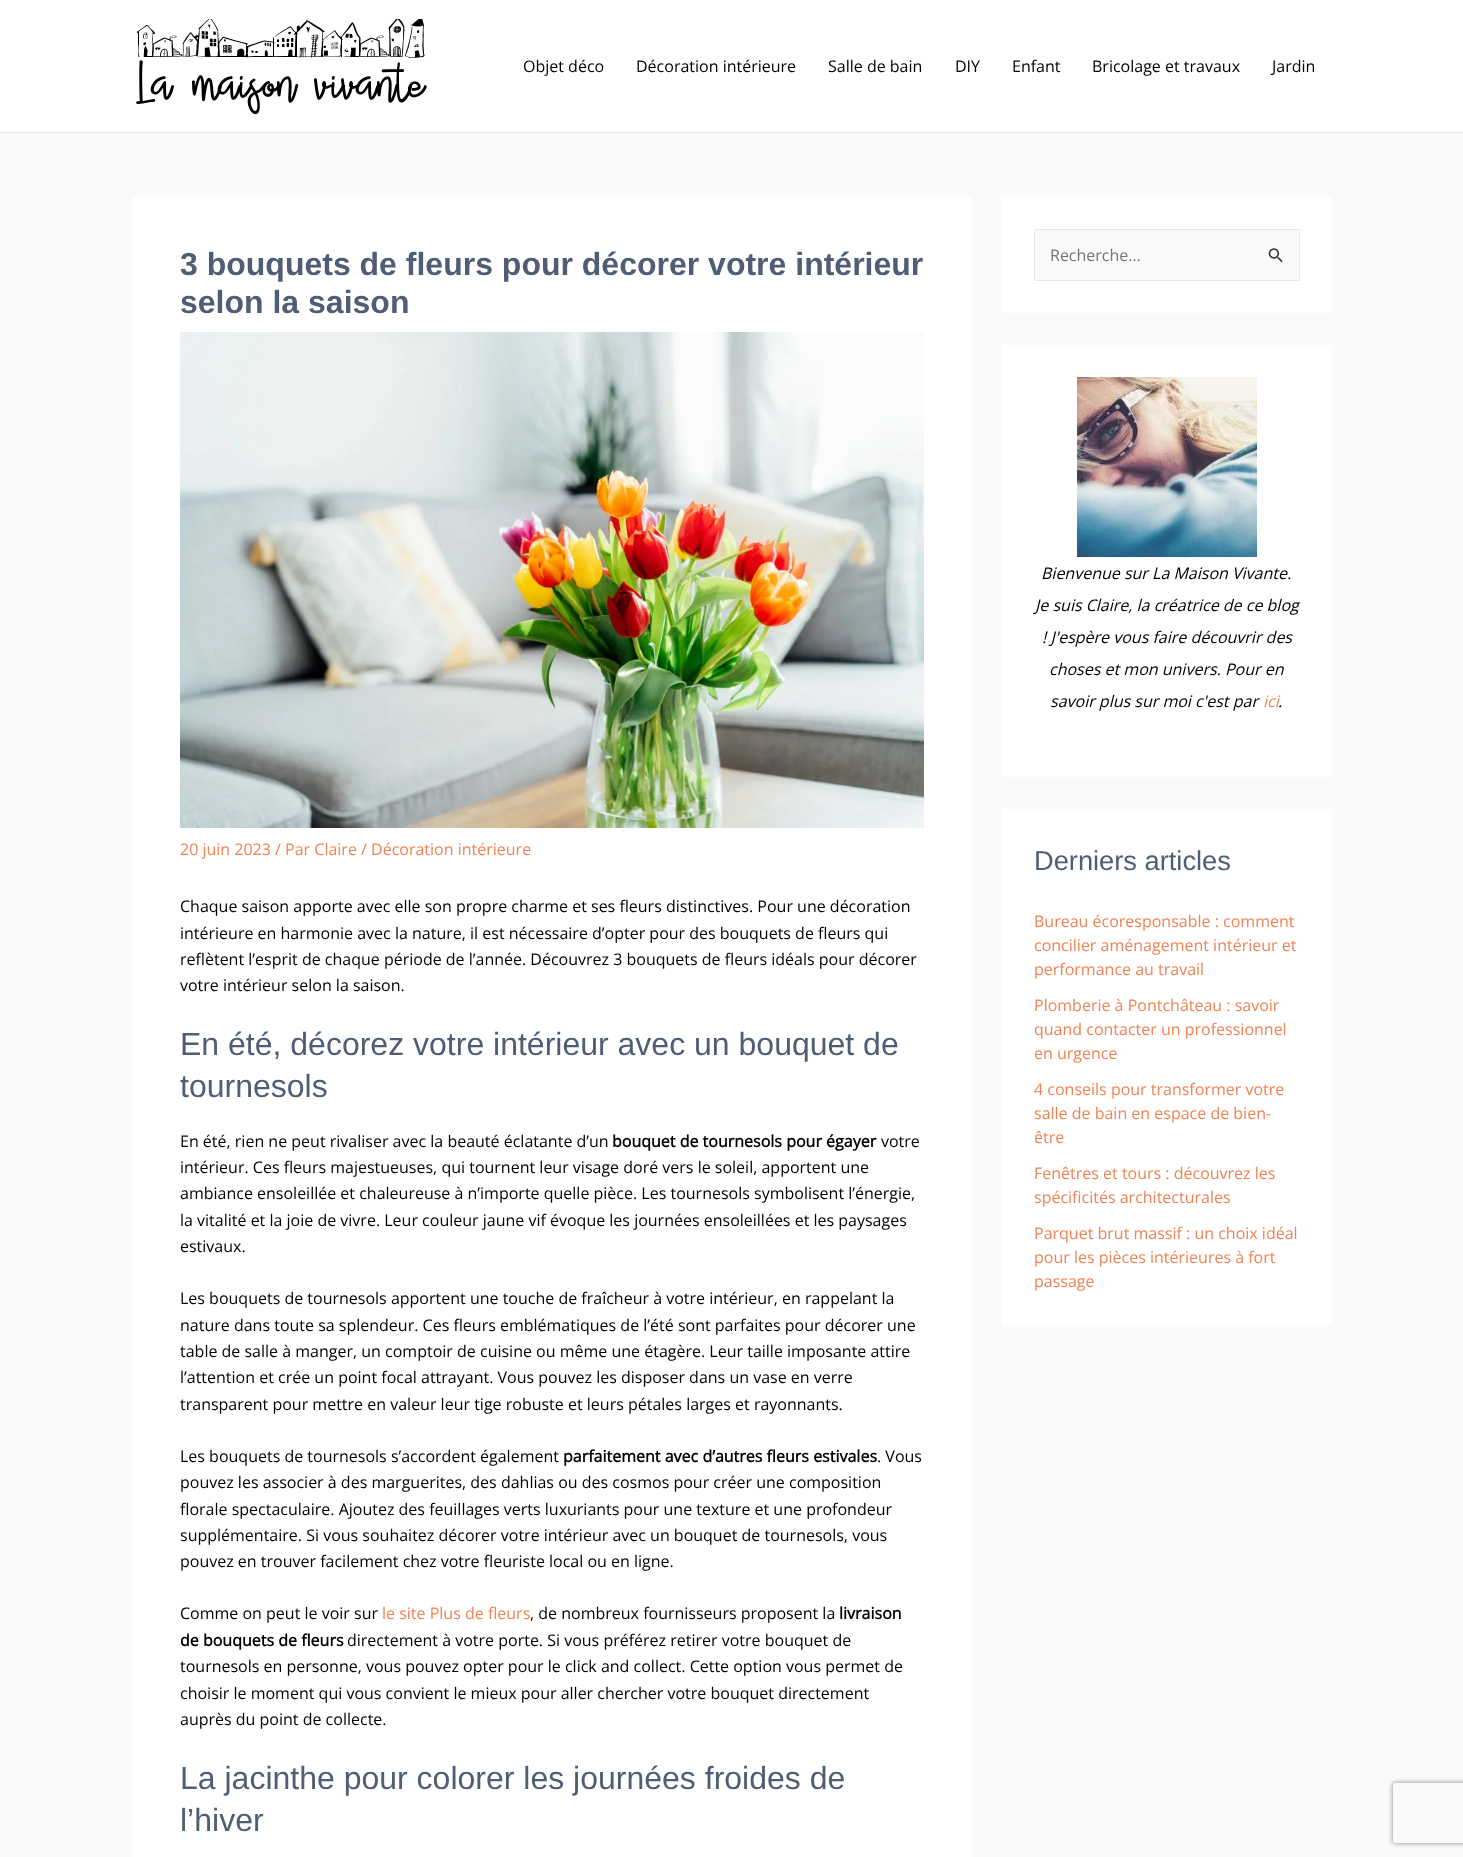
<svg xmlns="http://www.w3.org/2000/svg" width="1463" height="1857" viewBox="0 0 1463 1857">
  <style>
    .t1 { font: 16px Open Sans; fill: #000; }
    .t2 { font: bold 32px Liberation Sans; fill: #4f5d75; }
    .t3 { font: 16px Open Sans; fill: #ef8354; }
    .t4 { font: 32px Liberation Sans; fill: #4f5d75; }
    .t5 { font: bold 16px Open Sans; fill: #000; }
    .t6 { font: 16px Open Sans; fill: #757575; }
    .t7 { font: italic 16px Open Sans; fill: #000; }
    .t8 { font: italic 16px Open Sans; fill: #ef8354; }
    .t9 { font: 27.25px Liberation Sans; fill: #4f5d75; }
  </style>
  <defs>
    <clipPath id="clip1"><path d="M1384 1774H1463V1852H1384ZM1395 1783H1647C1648 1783 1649 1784 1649 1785V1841C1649 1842 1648 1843 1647 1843H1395C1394 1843 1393 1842 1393 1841V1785C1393 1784 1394 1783 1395 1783Z" clip-rule="evenodd"/></clipPath>
  </defs>
  <rect width="100%" height="100%" fill="#f9fafb"/>
  <rect x="0" y="0" width="1463" height="132" fill="#fff"/>
  <rect x="0" y="132" width="1463" height="1" fill="#e2e8f0"/>
  <image x="136" y="19" width="291" height="96" href="images/1.png"/>
  <text x="523" y="72" class="t1">Objet déco</text>
  <text x="636" y="72" class="t1">Décoration intérieure</text>
  <text x="828" y="72" class="t1">Salle de bain</text>
  <text x="955" y="72" class="t1">DIY</text>
  <text x="1012" y="72" class="t1">Enfant</text>
  <text x="1092" y="72" class="t1">Bricolage et travaux</text>
  <text x="1272" y="72" class="t1">Jardin</text>
  <rect x="132" y="197" width="840" height="1660" fill="#fff"/>
  <text x="180" y="275" class="t2">3 bouquets de fleurs pour décorer votre intérieur</text>
  <text x="180" y="313" class="t2">selon la saison</text>
  <image x="180" y="332" width="744" height="496" href="images/2.png"/>
  <text x="180" y="855" class="t3">20 juin 2023 / Par Claire / Décoration intérieure</text>
  <text x="180" y="912" class="t1">Chaque saison apporte avec elle son propre charme et ses fleurs distinctives. Pour une décoration</text>
  <text x="180" y="939" class="t1">intérieure en harmonie avec la nature, il est nécessaire d’opter pour des bouquets de fleurs qui</text>
  <text x="180" y="965" class="t1">reflètent l’esprit de chaque période de l’année. Découvrez 3 bouquets de fleurs idéals pour décorer</text>
  <text x="180" y="991" class="t1">votre intérieur selon la saison.</text>
  <text x="180" y="1055" class="t4">En été, décorez votre intérieur avec un bouquet de</text>
  <text x="180" y="1097" class="t4">tournesols</text>
  <text x="180" y="1147" class="t1">En été, rien ne peut rivaliser avec la beauté éclatante d’un</text>
  <text x="612" y="1147" class="t5">bouquet de tournesols pour égayer</text>
  <text x="881" y="1147" class="t1">votre</text>
  <text x="180" y="1173" class="t1">intérieur. Ces fleurs majestueuses, qui tournent leur visage doré vers le soleil, apportent une</text>
  <text x="180" y="1199" class="t1">ambiance ensoleillée et chaleureuse à n’importe quelle pièce. Les tournesols symbolisent l’énergie,</text>
  <text x="180" y="1226" class="t1">la vitalité et la joie de vivre. Leur couleur jaune vif évoque les journées ensoleillées et les paysages</text>
  <text x="180" y="1252" class="t1">estivaux.</text>
  <text x="180" y="1304" class="t1">Les bouquets de tournesols apportent une touche de fraîcheur à votre intérieur, en rappelant la</text>
  <text x="180" y="1331" class="t1">nature dans toute sa splendeur. Ces fleurs emblématiques de l’été sont parfaites pour décorer une</text>
  <text x="180" y="1357" class="t1">table de salle à manger, un comptoir de cuisine ou même une étagère. Leur taille imposante attire</text>
  <text x="180" y="1383" class="t1">l’attention et crée un point focal attrayant. Vous pouvez les disposer dans un vase en verre</text>
  <text x="180" y="1410" class="t1">transparent pour mettre en valeur leur tige robuste et leurs pétales larges et rayonnants.</text>
  <text x="180" y="1462" class="t1">Les bouquets de tournesols s’accordent également</text>
  <text x="563" y="1462" class="t5">parfaitement avec d’autres fleurs estivales</text>
  <text x="877" y="1462" class="t1">. Vous</text>
  <text x="180" y="1488" class="t1">pouvez les associer à des marguerites, des dahlias ou des cosmos pour créer une composition</text>
  <text x="180" y="1515" class="t1">florale spectaculaire. Ajoutez des feuillages verts luxuriants pour une texture et une profondeur</text>
  <text x="180" y="1541" class="t1">supplémentaire. Si vous souhaitez décorer votre intérieur avec un bouquet de tournesols, vous</text>
  <text x="180" y="1567" class="t1">pouvez en trouver facilement chez votre fleuriste local ou en ligne.</text>
  <text x="180" y="1619" class="t1">Comme on peut le voir sur</text>
  <text x="382" y="1619" class="t3">le site Plus de fleurs</text>
  <text x="530" y="1619" class="t1">, de nombreux fournisseurs proposent la</text>
  <text x="839" y="1619" class="t5">livraison</text>
  <text x="180" y="1646" class="t5">de bouquets de fleurs</text>
  <text x="347" y="1646" class="t1">directement à votre porte. Si vous préférez retirer votre bouquet de</text>
  <text x="180" y="1672" class="t1">tournesols en personne, vous pouvez opter pour le click and collect. Cette option vous permet de</text>
  <text x="180" y="1699" class="t1">choisir le moment qui vous convient le mieux pour aller chercher votre bouquet directement</text>
  <text x="180" y="1725" class="t1">auprès du point de collecte.</text>
  <text x="180" y="1789" class="t4">La jacinthe pour colorer les journées froides de</text>
  <text x="180" y="1831" class="t4">l’hiver</text>
  <rect x="1002" y="197" width="330" height="116" fill="#fff"/>
  <rect x="1034.5" y="229.5" width="265" height="51" rx="1.5" fill="#fafafa" stroke="#e2e8f0"/>
  <text x="1050" y="261" class="t6">Recherche…</text>
  <image x="1268" y="248" width="15" height="15" href="images/3.png"/>
  <rect x="1002" y="345" width="330" height="432" fill="#fff"/>
  <image x="1077" y="377" width="180" height="180" href="images/4.png"/>
  <text x="1041" y="579" class="t7">Bienvenue sur La Maison Vivante.</text>
  <text x="1035" y="611" class="t7">Je suis Claire, la créatrice de ce blog</text>
  <text x="1042" y="643" class="t7">! J'espère vous faire découvrir des</text>
  <text x="1049" y="675" class="t7">choses et mon univers. Pour en</text>
  <text x="1050" y="707" class="t7">savoir plus sur moi c'est par</text>
  <text x="1263" y="707" class="t8">ici</text>
  <text x="1278" y="707" class="t7">.</text>
  <rect x="1002" y="809" width="330" height="516" fill="#fff"/>
  <text x="1034" y="870" class="t9">Derniers articles</text>
  <text x="1034" y="927" class="t3">Bureau écoresponsable : comment</text>
  <text x="1034" y="951" class="t3">concilier aménagement intérieur et</text>
  <text x="1034" y="975" class="t3">performance au travail</text>
  <text x="1034" y="1011" class="t3">Plomberie à Pontchâteau : savoir</text>
  <text x="1034" y="1035" class="t3">quand contacter un professionnel</text>
  <text x="1034" y="1059" class="t3">en urgence</text>
  <text x="1034" y="1095" class="t3">4 conseils pour transformer votre</text>
  <text x="1034" y="1119" class="t3">salle de bain en espace de bien-</text>
  <text x="1034" y="1143" class="t3">être</text>
  <text x="1034" y="1179" class="t3">Fenêtres et tours : découvrez les</text>
  <text x="1034" y="1203" class="t3">spécificités architecturales</text>
  <text x="1034" y="1239" class="t3">Parquet brut massif : un choix idéal</text>
  <text x="1034" y="1263" class="t3">pour les pièces intérieures à fort</text>
  <text x="1034" y="1287" class="t3">passage</text>
  <g clip-path="url(#clip1)">
    <rect x="1393" y="1783" width="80" height="60" rx="2" fill="#808080" filter="blur(2.5px)"/>
  </g>
</svg>
